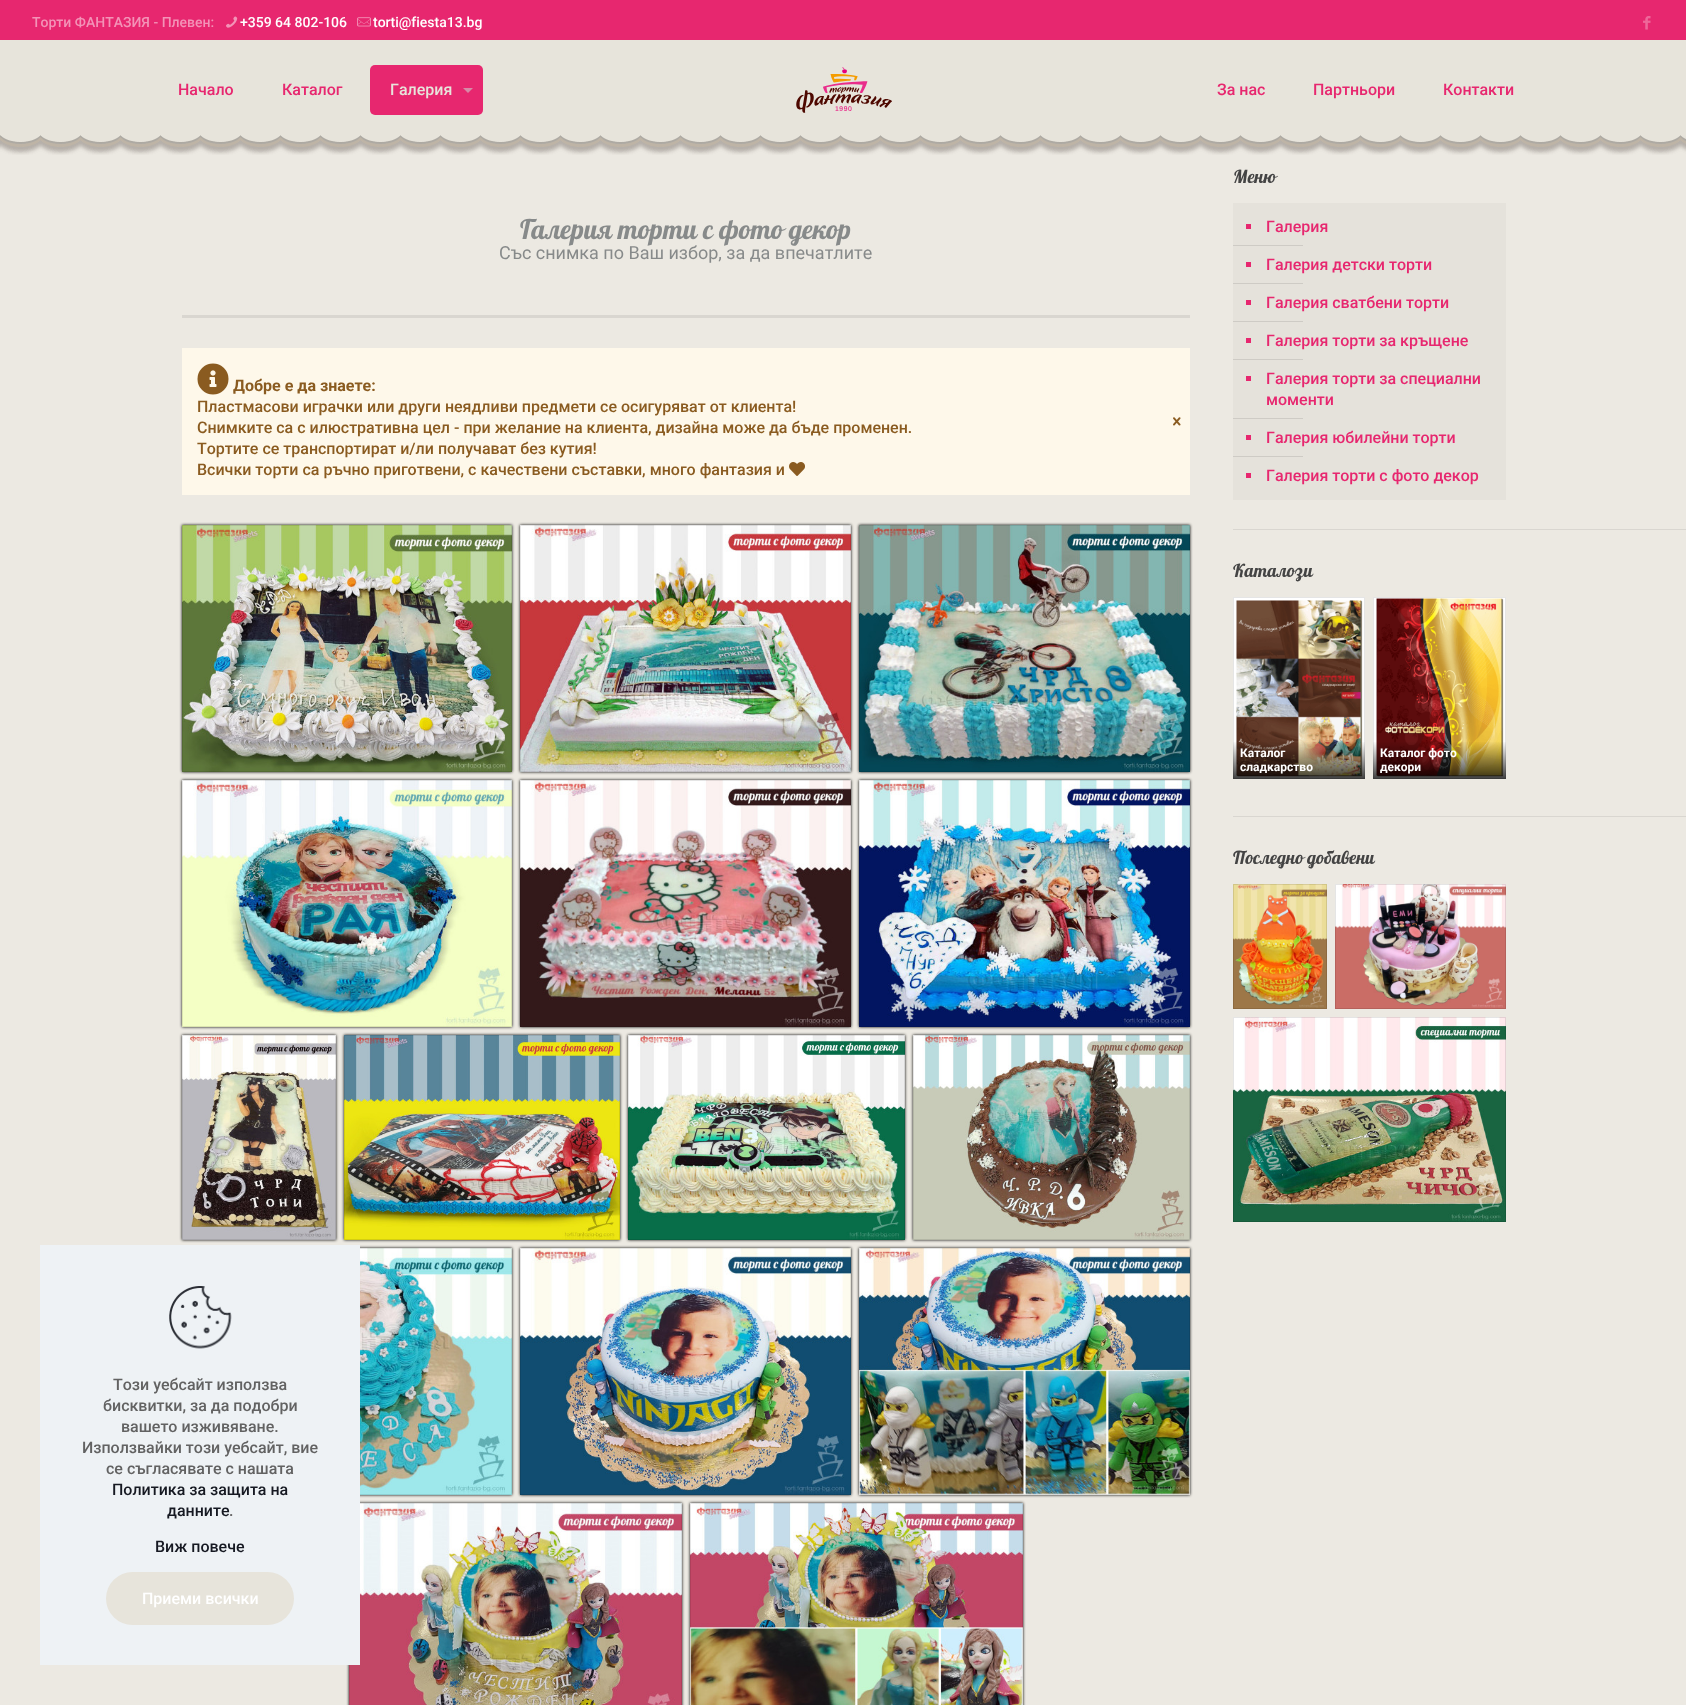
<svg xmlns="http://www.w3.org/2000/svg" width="1686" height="1705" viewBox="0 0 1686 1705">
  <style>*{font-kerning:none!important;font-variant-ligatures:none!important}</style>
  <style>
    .t1 { font: 500 14px Roboto; fill: #f393b7; }
    .t2 { font: 500 14px Roboto; fill: #fff; }
    .t3 { font: 500 16px Roboto; fill: #e7276f; }
    .t4 { font: 500 16px Roboto; fill: #e7e4db; }
    .t5 { font: 27px 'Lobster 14'; fill: #878a8a; }
    .t6 { font: 18px Roboto; fill: #878a8a; }
    .t7 { font: bold 16px Roboto; fill: #8a5b20; }
    .t8 { font: 500 16px Roboto; fill: #8a5b20; }
    .t9 { font: 18px 'Lobster 14'; fill: #444; }
    .t10 { font: bold 12px Roboto; fill: #fff; }
    .t11 { font: 500 16px Roboto; fill: #626262; }
    .t12 { font: 500 16px Roboto; fill: #161922; }
    .t13 { font: 500 16px Roboto; fill: #fff; }
  </style>
  <defs>
    <linearGradient id="g1" gradientUnits="userSpaceOnUse" x1="1299" y1="741" x2="1299" y2="779"><stop offset="0" stop-color="#000" stop-opacity="0"/><stop offset="1" stop-color="#000" stop-opacity="0.75"/></linearGradient>
    <linearGradient id="g2" gradientUnits="userSpaceOnUse" x1="1440" y1="741" x2="1440" y2="779"><stop offset="0" stop-color="#000" stop-opacity="0"/><stop offset="1" stop-color="#000" stop-opacity="0.75"/></linearGradient>
  </defs>
  <rect width="100%" height="100%" fill="#ece9e2"/>
  <rect x="0" y="0" width="1686" height="40" fill="#e7276f"/>
  <text x="32" y="27" class="t1">Торти ФАНТАЗИЯ - Плевен:</text>
  <image x="226" y="16" width="12" height="12" href="images/1.png"/>
  <text x="240" y="27" class="t2">+359 64 802-106</text>
  <image x="357" y="17" width="14" height="10" href="images/2.png"/>
  <text x="373" y="27" class="t2">torti@fiesta13.bg</text>
  <image x="1643" y="16" width="8" height="14" href="images/3.png"/>
  <rect x="0" y="40" width="1686" height="95" fill="#e7e4db"/>
  <image x="796" y="67" width="96" height="46" href="images/4.png"/>
  <text x="178" y="95" class="t3">Начало</text>
  <text x="282" y="95" class="t3">Каталог</text>
  <rect x="370" y="65" width="113" height="50" rx="5" fill="#e7276f"/>
  <text x="390" y="95" class="t4">Галерия</text>
  <path d="M463 88H473L468 93Z" fill="#d78aa7"/>
  <text x="1217" y="95" class="t3">За нас</text>
  <text x="1313" y="95" class="t3">Партньори</text>
  <text x="1443" y="95" class="t3">Контакти</text>
  <image x="0" y="135" width="1686" height="20" href="images/5.png"/>
  <text x="520" y="239" class="t5">Галерия торти с фото декор</text>
  <text x="499" y="259" class="t6">Със снимка по Ваш избор, за да впечатлите</text>
  <rect x="182" y="315" width="1008" height="3" fill="#d9d6d0"/>
  <rect x="182" y="348" width="1008" height="147" fill="#fef8ea"/>
  <image x="197" y="363" width="32" height="32" href="images/6.png"/>
  <text x="233" y="391" class="t7">Добре е да знаете:</text>
  <text x="197" y="412" class="t8">Пластмасови играчки или други неядливи предмети се осигуряват от клиента!</text>
  <text x="197" y="433" class="t8">Снимките са с илюстративна цел - при желание на клиента, дизайна може да бъде променен.</text>
  <text x="197" y="454" class="t8">Тортите се транспортират и/ли получават без кутия!</text>
  <text x="197" y="475" class="t8">Всички торти са ръчно приготвени, с качествени съставки, много фантазия и</text>
  <image x="789" y="462" width="16" height="14" href="images/7.png"/>
  <image x="1173" y="417" width="8" height="9" href="images/8.png"/>
  <rect x="182" y="525" width="330" height="247" fill="#000" filter="blur(1.5px)"/>
  <image x="182" y="525" width="330" height="247" href="images/9.png"/>
  <rect x="182.5" y="525.5" width="329" height="246" fill="none" stroke="#0000001a"/>
  <rect x="520" y="525" width="331" height="247" fill="#000" filter="blur(1.5px)"/>
  <image x="520" y="525" width="331" height="247" href="images/10.png"/>
  <rect x="520.5" y="525.5" width="330" height="246" fill="none" stroke="#0000001a"/>
  <rect x="859" y="525" width="331" height="247" fill="#000" filter="blur(1.5px)"/>
  <image x="859" y="525" width="331" height="247" href="images/11.png"/>
  <rect x="859.5" y="525.5" width="330" height="246" fill="none" stroke="#0000001a"/>
  <rect x="182" y="780" width="330" height="247" fill="#000" filter="blur(1.5px)"/>
  <image x="182" y="780" width="330" height="247" href="images/12.png"/>
  <rect x="182.5" y="780.5" width="329" height="246" fill="none" stroke="#0000001a"/>
  <rect x="520" y="780" width="331" height="247" fill="#000" filter="blur(1.5px)"/>
  <image x="520" y="780" width="331" height="247" href="images/13.png"/>
  <rect x="520.5" y="780.5" width="330" height="246" fill="none" stroke="#0000001a"/>
  <rect x="859" y="780" width="331" height="247" fill="#000" filter="blur(1.5px)"/>
  <image x="859" y="780" width="331" height="247" href="images/14.png"/>
  <rect x="859.5" y="780.5" width="330" height="246" fill="none" stroke="#0000001a"/>
  <rect x="182" y="1035" width="154" height="205" fill="#000" filter="blur(1.5px)"/>
  <image x="182" y="1035" width="154" height="205" href="images/15.png"/>
  <rect x="182.5" y="1035.5" width="153" height="204" fill="none" stroke="#0000001a"/>
  <rect x="344" y="1035" width="276" height="205" fill="#000" filter="blur(1.5px)"/>
  <image x="344" y="1035" width="276" height="205" href="images/16.png"/>
  <rect x="344.5" y="1035.5" width="275" height="204" fill="none" stroke="#0000001a"/>
  <rect x="628" y="1035" width="277" height="205" fill="#000" filter="blur(1.5px)"/>
  <image x="628" y="1035" width="277" height="205" href="images/17.png"/>
  <rect x="628.5" y="1035.5" width="276" height="204" fill="none" stroke="#0000001a"/>
  <rect x="913" y="1035" width="277" height="205" fill="#000" filter="blur(1.5px)"/>
  <image x="913" y="1035" width="277" height="205" href="images/18.png"/>
  <rect x="913.5" y="1035.5" width="276" height="204" fill="none" stroke="#0000001a"/>
  <rect x="182" y="1248" width="330" height="247" fill="#000" filter="blur(1.5px)"/>
  <image x="360" y="1248" width="152" height="247" href="images/19.png"/>
  <rect x="182.5" y="1248.5" width="329" height="246" fill="none" stroke="#0000001a"/>
  <rect x="520" y="1248" width="331" height="247" fill="#000" filter="blur(1.5px)"/>
  <image x="520" y="1248" width="331" height="247" href="images/20.png"/>
  <rect x="520.5" y="1248.5" width="330" height="246" fill="none" stroke="#0000001a"/>
  <rect x="859" y="1248" width="331" height="247" fill="#000" filter="blur(1.5px)"/>
  <image x="859" y="1248" width="331" height="247" href="images/21.png"/>
  <rect x="859.5" y="1248.5" width="330" height="246" fill="none" stroke="#0000001a"/>
  <rect x="349" y="1503" width="333" height="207" fill="#000" filter="blur(1.5px)"/>
  <image x="349" y="1503" width="333" height="202" href="images/22.png"/>
  <rect x="349.5" y="1503.5" width="332" height="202" fill="none" stroke="#0000001a"/>
  <rect x="690" y="1503" width="333" height="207" fill="#000" filter="blur(1.5px)"/>
  <image x="690" y="1503" width="333" height="202" href="images/23.png"/>
  <rect x="690.5" y="1503.5" width="332" height="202" fill="none" stroke="#0000001a"/>
  <text x="1233" y="183" class="t9">Меню</text>
  <rect x="1233" y="203" width="273" height="297" fill="#e5e2db"/>
  <rect x="1246" y="224" width="5" height="5" fill="#e7276f"/>
  <text x="1266" y="232" class="t3">Галерия</text>
  <rect x="1233" y="245" width="70" height="1" fill="#cecbc5"/>
  <rect x="1246" y="262" width="5" height="5" fill="#e7276f"/>
  <text x="1266" y="270" class="t3">Галерия детски торти</text>
  <rect x="1233" y="283" width="70" height="1" fill="#cecbc5"/>
  <rect x="1246" y="300" width="5" height="5" fill="#e7276f"/>
  <text x="1266" y="308" class="t3">Галерия сватбени торти</text>
  <rect x="1233" y="321" width="70" height="1" fill="#cecbc5"/>
  <rect x="1246" y="338" width="5" height="5" fill="#e7276f"/>
  <text x="1266" y="346" class="t3">Галерия торти за кръщене</text>
  <rect x="1233" y="359" width="70" height="1" fill="#cecbc5"/>
  <rect x="1246" y="376" width="5" height="5" fill="#e7276f"/>
  <text x="1266" y="384" class="t3">Галерия торти за специални</text>
  <text x="1266" y="405" class="t3">моменти</text>
  <rect x="1233" y="418" width="70" height="1" fill="#cecbc5"/>
  <rect x="1246" y="435" width="5" height="5" fill="#e7276f"/>
  <text x="1266" y="443" class="t3">Галерия юбилейни торти</text>
  <rect x="1233" y="456" width="70" height="1" fill="#cecbc5"/>
  <rect x="1246" y="473" width="5" height="5" fill="#e7276f"/>
  <text x="1266" y="481" class="t3">Галерия торти с фото декор</text>
  <rect x="1233" y="529" width="453" height="1" fill="#d9d6d0"/>
  <text x="1233" y="577" class="t9">Каталози</text>
  <rect x="1233" y="597" width="132" height="182" fill="#fff"/>
  <image x="1236" y="600" width="127" height="177" href="images/24.png"/>
  <rect x="1233" y="742" width="132" height="37" fill="url(#g1)"/>
  <rect x="1233.5" y="597.5" width="131" height="181" fill="none" stroke="#0000001a"/>
  <text x="1240" y="757" class="t10">Каталог</text>
  <text x="1240" y="771" class="t10">сладкарство</text>
  <rect x="1373" y="597" width="133" height="182" fill="#fff"/>
  <image x="1376" y="598" width="128" height="179" href="images/25.png"/>
  <rect x="1373" y="742" width="133" height="37" fill="url(#g2)"/>
  <rect x="1373.5" y="597.5" width="132" height="181" fill="none" stroke="#0000001a"/>
  <text x="1380" y="757" class="t10">Каталог фото</text>
  <text x="1380" y="771" class="t10">декори</text>
  <rect x="1233" y="816" width="453" height="1" fill="#d9d6d0"/>
  <text x="1233" y="864" class="t9">Последно добавени</text>
  <image x="1233" y="884" width="94" height="125" href="images/26.png"/>
  <rect x="1233.5" y="884.5" width="93" height="124" fill="none" stroke="#0000001a"/>
  <image x="1335" y="884" width="171" height="125" href="images/27.png"/>
  <rect x="1335.5" y="884.5" width="170" height="124" fill="none" stroke="#0000001a"/>
  <image x="1233" y="1017" width="273" height="205" href="images/28.png"/>
  <rect x="1233.5" y="1017.5" width="272" height="204" fill="none" stroke="#0000001a"/>
  <rect x="40" y="1245" width="320" height="420" fill="#eef2f5"/>
  <image x="169" y="1286" width="63" height="63" href="images/29.png"/>
  <text x="113" y="1390" class="t11">Този уебсайт използва</text>
  <text x="103" y="1411" class="t11">бисквитки, за да подобри</text>
  <text x="121" y="1432" class="t11">вашето изживяване.</text>
  <text x="82" y="1453" class="t11">Използвайки този уебсайт, вие</text>
  <text x="106" y="1474" class="t11">се съгласявате с нашата</text>
  <text x="112" y="1495" class="t12">Политика за защита на</text>
  <text x="167" y="1516" class="t12">данните</text>
  <text x="229" y="1516" class="t11">.</text>
  <text x="155" y="1552" class="t12">Виж повече</text>
  <rect x="106" y="1572" width="188" height="53" rx="26.5" fill="#e7e4db"/>
  <text x="142" y="1604" class="t13">Приеми всички</text>
</svg>
